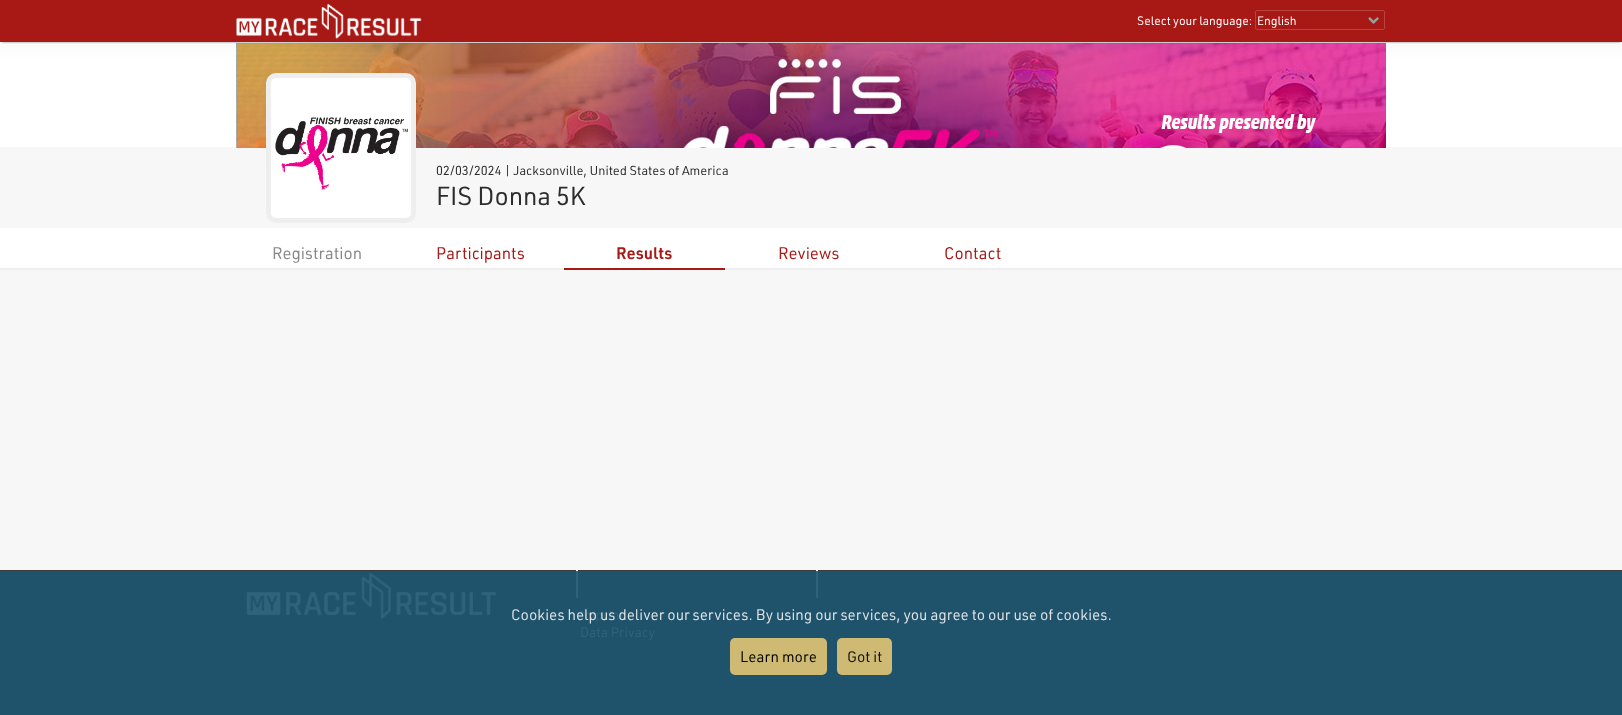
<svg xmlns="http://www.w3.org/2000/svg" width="1622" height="715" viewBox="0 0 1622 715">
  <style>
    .t1 { font: 12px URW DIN; fill: #fff; }
    .t2 { font: 12.75px URW DIN; fill: #2c2c2c; }
    .t3 { font: 25.5px URW DIN; fill: #2c2c2c; }
    .t4 { font: 16.5px URW DIN; fill: #888; }
    .t5 { font: 16.5px URW DIN; fill: #a81815; }
    .t6 { font: 600 16.5px URW DIN; fill: #a81815; }
    .t7 { font: 13.5px URW DIN; fill: #2f627b; }
    .t8 { font: 15px URW DIN; fill: #dee2e4; }
    .t9 { font: 15px URW DIN; fill: #050505; }
    .t10 { font: 15px URW DIN; fill: #100f09; }
  </style>
  <defs>
    <linearGradient id="g1" gradientUnits="userSpaceOnUse" x1="811" y1="147" x2="811" y2="-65"><stop offset="0.4" stop-color="#fff"/><stop offset="1" stop-color="#ddd"/></linearGradient>
  </defs>
  <rect width="100%" height="100%" fill="#f7f7f7"/>
  <rect x="0" y="42" width="1622" height="105" fill="url(#g1)"/>
  <image x="236" y="43" width="1150" height="105" href="images/3.png"/>
  <rect x="2" y="4" width="1618" height="38" fill="#00000085" filter="blur(1px)"/>
  <rect x="0" y="0" width="1622" height="42" fill="#a81815"/>
  <image x="236" y="4" width="186" height="35" href="images/1.png"/>
  <text x="1137" y="25" class="t1">Select your language:</text>
  <image x="1368" y="17" width="11" height="7" href="images/2.png"/>
  <rect x="1255.5" y="10.5" width="129" height="19" rx="1.5" fill="none" stroke="#b74340"/>
  <text x="1257" y="25" class="t1">English</text>
  <rect x="268.5" y="75.5" width="145" height="145" rx="7.5" fill="#fff" stroke="#eee" stroke-width="5"/>
  <image x="275" y="117" width="133" height="73" href="images/4.png"/>
  <text x="436" y="175" class="t2">02/03/2024 | Jacksonville, United States of America</text>
  <text x="436" y="205" class="t3">FIS Donna 5K</text>
  <rect x="0" y="228" width="1622" height="40" fill="#fff"/>
  <rect x="0" y="268" width="1622" height="2" fill="#eee"/>
  <text x="272" y="259" class="t4">Registration</text>
  <text x="436" y="259" class="t5">Participants</text>
  <rect x="564" y="268" width="161" height="2" fill="#a81815"/>
  <text x="616" y="259" class="t6">Results</text>
  <text x="778" y="259" class="t5">Reviews</text>
  <text x="944" y="259" class="t5">Contact</text>
  <rect x="0" y="571" width="1622" height="144" fill="#1f526b"/>
  <text x="580" y="620" class="t7">Imprint</text>
  <text x="511" y="620" class="t8">Cookies help us deliver our services. By using our services, you agree to our use of cookies.</text>
  <rect x="730" y="638" width="97" height="37" rx="5" fill="#ddc374eb"/>
  <text x="740" y="662" class="t9">Learn more</text>
  <rect x="837" y="638" width="55" height="37" rx="5" fill="#ddc374eb"/>
  <text x="847" y="662" class="t10">Got it</text>
  <rect x="0" y="570" width="1622" height="1" fill="#3c3c3b"/>
  <image x="246" y="572" width="251" height="47" href="images/5.png"/>
  <rect x="816" y="570" width="2" height="1" fill="#fff"/>
  <rect x="816" y="571" width="2" height="27" fill="#2f627b"/>
  <rect x="576" y="570" width="2" height="1" fill="#fff"/>
  <rect x="576" y="571" width="2" height="27" fill="#2f627b"/>
  <text x="580" y="637" class="t7">Data Privacy</text>
</svg>
